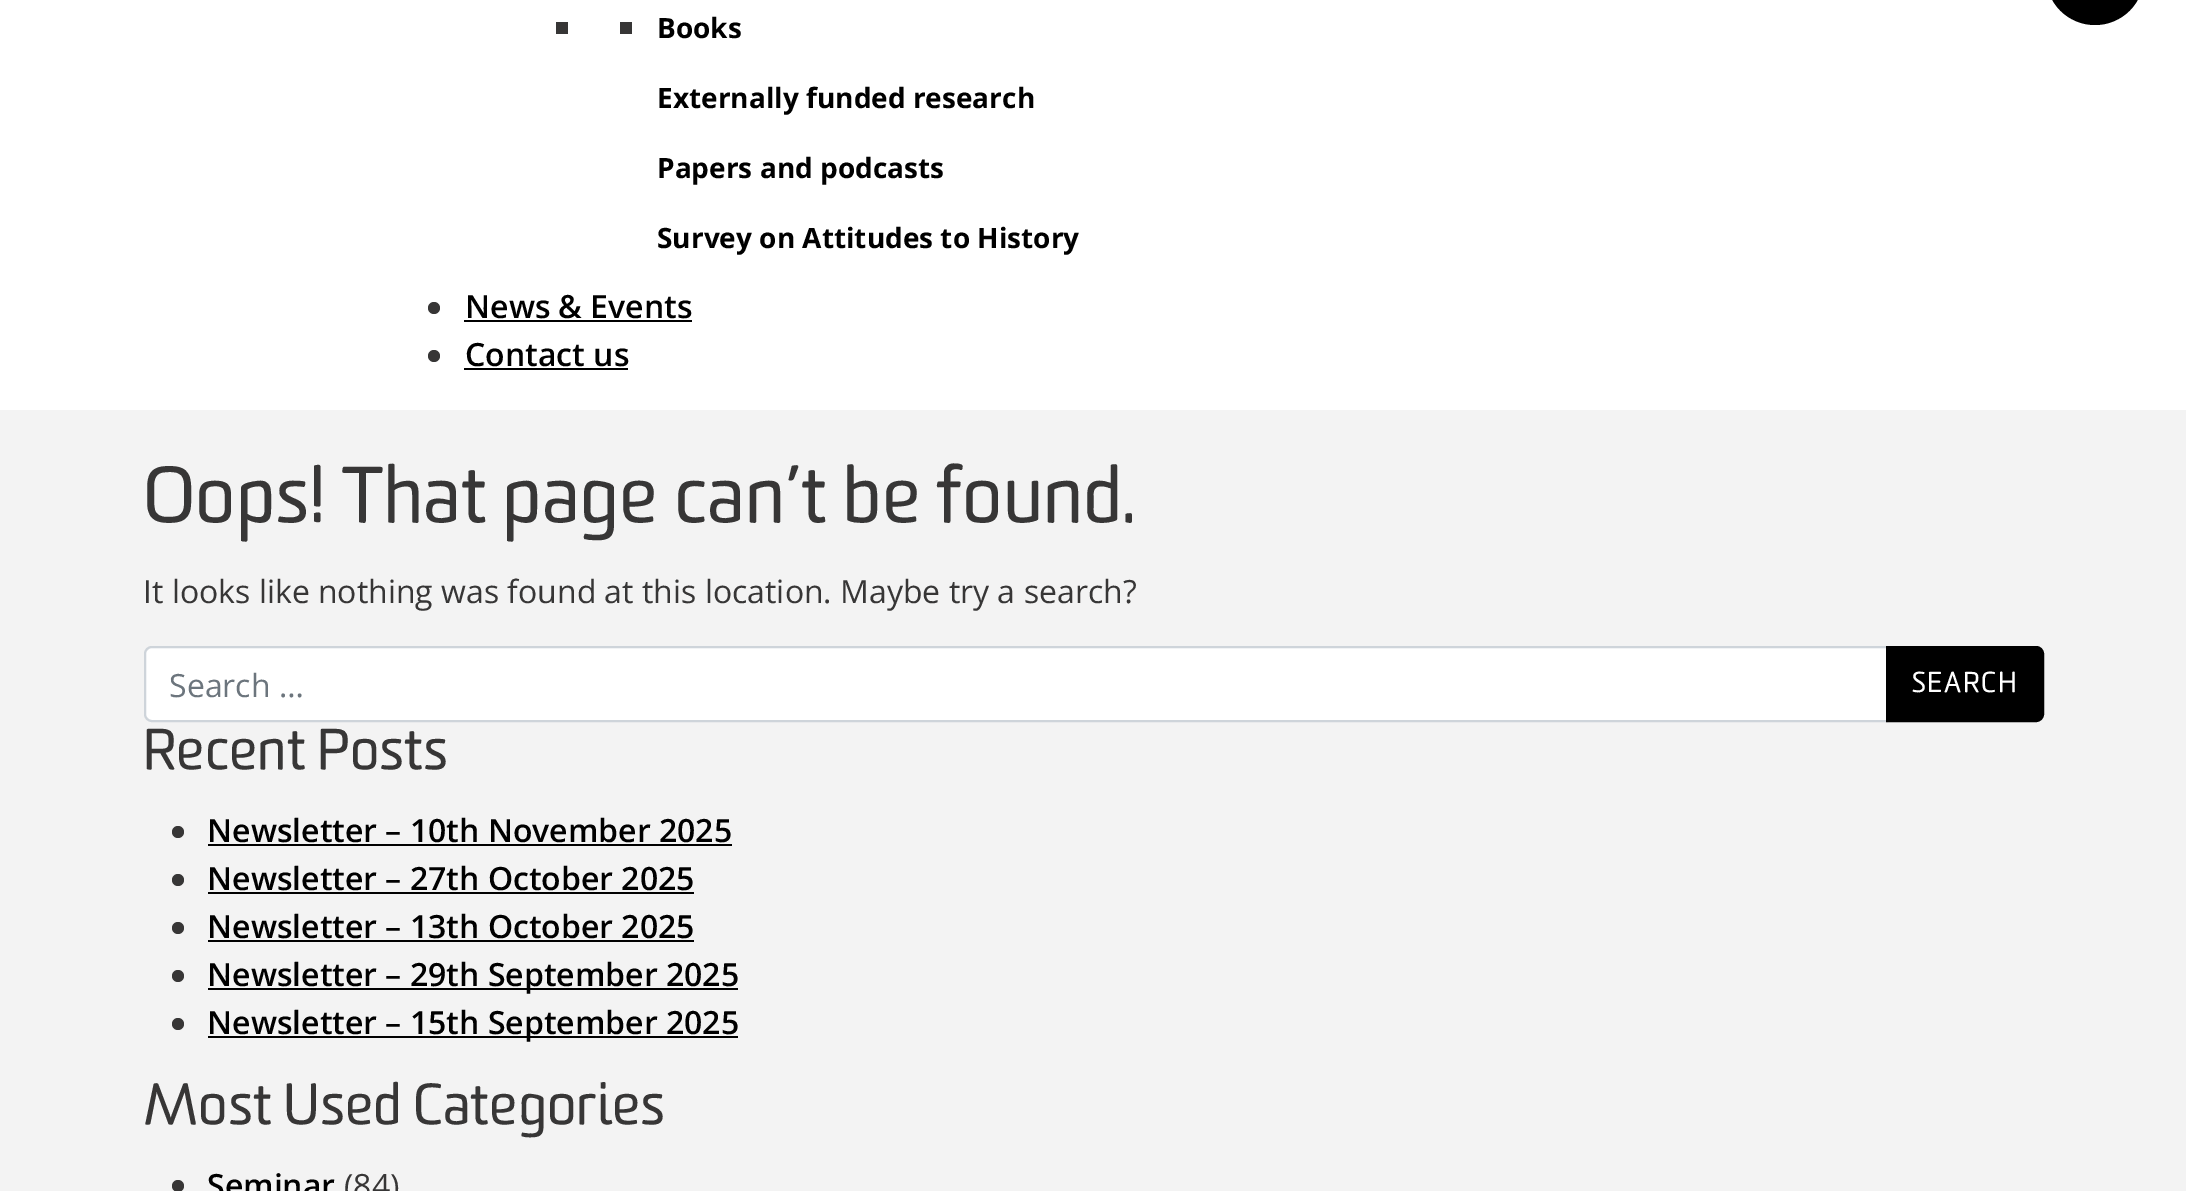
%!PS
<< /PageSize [2186 1191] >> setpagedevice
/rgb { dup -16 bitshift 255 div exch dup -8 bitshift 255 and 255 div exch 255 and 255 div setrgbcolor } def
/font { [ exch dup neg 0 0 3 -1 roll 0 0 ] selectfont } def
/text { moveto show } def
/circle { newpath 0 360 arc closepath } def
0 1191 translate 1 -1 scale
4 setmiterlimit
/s1 { /OpenSans-Bold 28 font 16#000000 rgb } def
/s2 { /OpenSans-SemiBold 32 font 16#000000 rgb } def
/s3 { /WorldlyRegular-Regular 76.75 font 16#373636 rgb } def
/s4 { /OpenSans-Regular 32 font 16#373636 rgb } def
/s5 { /OpenSans-Regular 32 font 16#6C757D rgb } def
/s6 { /WorldlyRegular-Regular 56 font 16#373636 rgb } def
16#F3F3F3 rgb
0 0 2186 1191 rectfill
16#FFFFFF rgb
0 0 2186 410 rectfill
16#000000 rgb
2095 -24 49 circle fill
16#373636 rgb
556 22 12 12 rectfill
620 22 12 12 rectfill
s1
(Books) 657 38 text
(Externally funded research) 657 108 text
(Papers and podcasts) 657 178 text
(Survey on Attitudes to History) 657 248 text
16#373636 rgb
434 308 6 circle fill
s2
(News & Events) 465 318 text
464 320 228 2 rectfill
16#373636 rgb
434 356 6 circle fill
s2
(Contact us) 465 366 text
464 368 164 2 rectfill
s3
(Oops! That page can’t be found.) 143 522 text
s4
(It looks like nothing was found at this location. Maybe try a search?) 143 603 text
16#FFFFFF rgb
152 647 moveto 1887 647 lineto 1887 721 lineto 152 721 lineto 148 721 145 718 145 714 curveto 145 654 lineto 145 650 148 647 152 647 curveto closepath gsave fill grestore
16#CED4DA rgb
2 setlinewidth
stroke
s5
(Search …) 169 697 text
16#000000 rgb
1887 647 moveto 2036 647 lineto 2040 647 2043 650 2043 654 curveto 2043 714 lineto 2043 718 2040 721 2036 721 curveto 1887 721 lineto closepath gsave fill grestore
stroke
/WorldlyRegular-Regular 28 font
16#FFFFFF rgb
1912 692 moveto 1.5 0 (SEARCH) ashow
s6
(Recent Posts) 143 769 text
178 832 6 circle fill
s2
(Newsletter – 10th November 2025) 207 842 text
208 844 524 2 rectfill
16#373636 rgb
178 880 6 circle fill
s2
(Newsletter – 27th October 2025) 207 890 text
208 892 486 2 rectfill
16#373636 rgb
178 928 6 circle fill
s2
(Newsletter – 13th October 2025) 207 938 text
208 940 486 2 rectfill
16#373636 rgb
178 976 6 circle fill
16#000000 rgb
208 988 530 2 rectfill
(Newsletter – 29th September 2025) 207 986 text
16#373636 rgb
178 1024 6 circle fill
16#000000 rgb
208 1036 530 2 rectfill
(Newsletter – 15th September 2025) 207 1034 text
s6
(Most Used Categories) 143 1124 text
178 1186 6 circle fill
s2
(Seminar) 207 1197 text
s4
(\(84\)) 344 1197 text
showpage
